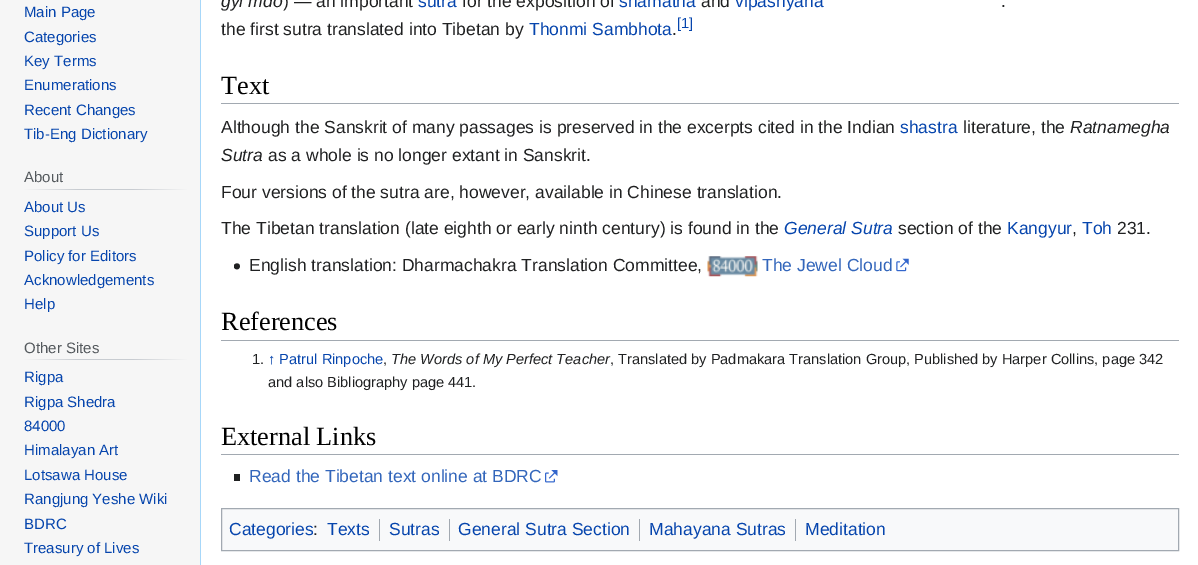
%!PS
<< /PageSize [1198 565] >> setpagedevice
/rgb { dup -16 bitshift 255 div exch dup -8 bitshift 255 and 255 div exch 255 and 255 div setrgbcolor } def
/font { [ exch dup neg 0 0 3 -1 roll 0 0 ] selectfont } def
/text { moveto show } def
/picture { 5 dict begin { /h /w /y /x /name } { exch def } forall
  gsave x y translate w h scale
  w h 8 [w 0 0 h 0 0] name (r) file false 3 colorimage grestore end } def
0 565 translate 1 -1 scale
4 setmiterlimit
/s1 { /LiberationSans-Regular 15 font 16#0645AD rgb } def
/s2 { /LiberationSans-Regular 15 font 16#54595D rgb } def
/s3 { /LiberationSans-Italic 17.5 font 16#202122 rgb } def
/s4 { /LiberationSans-Regular 17.5 font 16#202122 rgb } def
/s5 { /LiberationSans-Regular 17.5 font 16#0645AD rgb } def
/s6 { /LiberationSans-Regular 14.6 font 16#0645AD rgb } def
/s7 { /LiberationSerif-Regular 26.25 font 16#000000 rgb } def
/s8 { /LiberationSans-Italic 17.5 font 16#0645AD rgb } def
/s9 { /LiberationSans-Regular 17.5 font 16#3366BB rgb } def
/s10 { /LiberationSans-Regular 14.6 font 16#202122 rgb } def
/s11 { /LiberationSans-Italic 14.6 font 16#202122 rgb } def
16#F6F6F6 rgb
0 0 1198 565 rectfill
s1
(Main Page) 24 17 text
(Categories) 24 42 text
(Key Terms) 24 66 text
(Enumerations) 24 90 text
(Recent Changes) 24 115 text
(Tib-Eng Dictionary) 24 139 text
gsave 24 189 moveto 188 189 lineto 188 190 lineto 24 190 lineto closepath clip newpath
<< /ShadingType 2 /ColorSpace /DeviceRGB /Coords [24 189 188 189] /Extend [true true] /Function << /FunctionType 3 /Domain [0 1] /Functions [<< /FunctionType 2 /Domain [0 1] /C0 [0.965 0.965 0.965] /C1 [0.784 0.8 0.82] /N 1 >> << /FunctionType 2 /Domain [0 1] /C0 [0.784 0.8 0.82] /C1 [0.784 0.8 0.82] /N 1 >> << /FunctionType 2 /Domain [0 1] /C0 [0.784 0.8 0.82] /C1 [0.965 0.965 0.965] /N 1 >>] /Bounds [0.33 0.66] /Encode [0 1 0 1 0 1] >> >> shfill grestore
s2
(About) 24 182 text
s1
(About Us) 24 212 text
(Support Us) 24 236 text
(Policy for Editors) 24 261 text
(Acknowledgements) 24 285 text
(Help) 24 309 text
gsave 24 359 moveto 188 359 lineto 188 360 lineto 24 360 lineto closepath clip newpath
<< /ShadingType 2 /ColorSpace /DeviceRGB /Coords [24 359 188 359] /Extend [true true] /Function << /FunctionType 3 /Domain [0 1] /Functions [<< /FunctionType 2 /Domain [0 1] /C0 [0.965 0.965 0.965] /C1 [0.784 0.8 0.82] /N 1 >> << /FunctionType 2 /Domain [0 1] /C0 [0.784 0.8 0.82] /C1 [0.784 0.8 0.82] /N 1 >> << /FunctionType 2 /Domain [0 1] /C0 [0.784 0.8 0.82] /C1 [0.965 0.965 0.965] /N 1 >>] /Bounds [0.33 0.66] /Encode [0 1 0 1 0 1] >> >> shfill grestore
s2
(Other Sites) 24 353 text
s1
(Rigpa) 24 382 text
(Rigpa Shedra) 24 407 text
(84000) 24 431 text
(Himalayan Art) 24 455 text
(Lotsawa House) 24 480 text
(Rangjung Yeshe Wiki) 24 504 text
(BDRC) 24 529 text
(Treasury of Lives) 24 553 text
16#FFFFFF rgb
201 0 997 565 rectfill
16#A7D7F9 rgb
200 0 1 565 rectfill
s3
(gyi mdo) 221 7 text
s4
(\) — an important) 283 7 text
s5
(sutra) 418 7 text
s4
(for the exposition of) 462 7 text
s5
(shamatha) 619 7 text
s4
(and) 701 7 text
s5
(vipashyana) 735 7 text
s4
(.) 1001 7 text
(the first sutra translated into Tibetan by) 221 35 text
s5
(Thonmi Sambhota) 529 35 text
s4
(.) 672 35 text
s6
([1]) 677 28 text
16#A2A9B1 rgb
221 103 958 1 rectfill
s7
(Text) 221 94 text
s4
(Although the Sanskrit of many passages is preserved in the excerpts cited in the Indian) 221 133 text
s5
(shastra) 900 133 text
s4
(literature, the) 963 133 text
s3
(Ratnamegha) 1070 133 text
(Sutra) 221 161 text
s4
(as a whole is no longer extant in Sanskrit.) 268 161 text
(Four versions of the sutra are, however, available in Chinese translation.) 221 198 text
(The Tibetan translation \(late eighth or early ninth century\) is found in the) 221 234 text
s8
(General Sutra) 784 234 text
s4
(section of the) 898 234 text
s5
(Kangyur) 1007 234 text
s4
(,) 1072 234 text
s5
(Toh) 1082 234 text
s4
(231.) 1117 234 text
(pic1.raw) 234 263 6 7 picture
(English translation: Dharmachakra Translation Committee,) 249 271 text
(pic2.raw) 707 256 51 21 picture
s9
(The Jewel Cloud) 762 271 text
(pic3.raw) 896 258 13 14 picture
16#A2A9B1 rgb
221 340 958 1 rectfill
s7
(References) 221 330 text
s10
(1.) 252 364 text
s6
(↑ Patrul Rinpoche) 268 364 text
s10
(,) 383 364 text
s11
(The Words of My Perfect Teacher) 391 364 text
s10
(, Translated by Padmakara Translation Group, Published by Harper Collins, page 342) 610 364 text
(and also Bibliography page 441.) 268 387 text
16#A2A9B1 rgb
221 454 958 1 rectfill
s7
(External Links) 221 445 text
16#202122 rgb
234 474 6 7 rectfill
s9
(Read the Tibetan text online at BDRC) 249 482 text
(pic4.raw) 545 470 13 13 picture
16#F8F9FA rgb
221.5 508.5 moveto 1178.5 508.5 lineto 1178.5 550.5 lineto 221.5 550.5 lineto closepath gsave fill grestore
16#A2A9B1 rgb
stroke
s5
(Categories) 229 535 text
s4
(:) 313 535 text
s5
(Texts) 327 535 text
16#A2A9B1 rgb
379 519 1 22 rectfill
s5
(Sutras) 389 535 text
16#A2A9B1 rgb
449 519 1 22 rectfill
s5
(General Sutra Section) 458 535 text
16#A2A9B1 rgb
639 519 1 22 rectfill
s5
(Mahayana Sutras) 649 535 text
16#A2A9B1 rgb
795 519 1 22 rectfill
s5
(Meditation) 805 535 text
showpage
